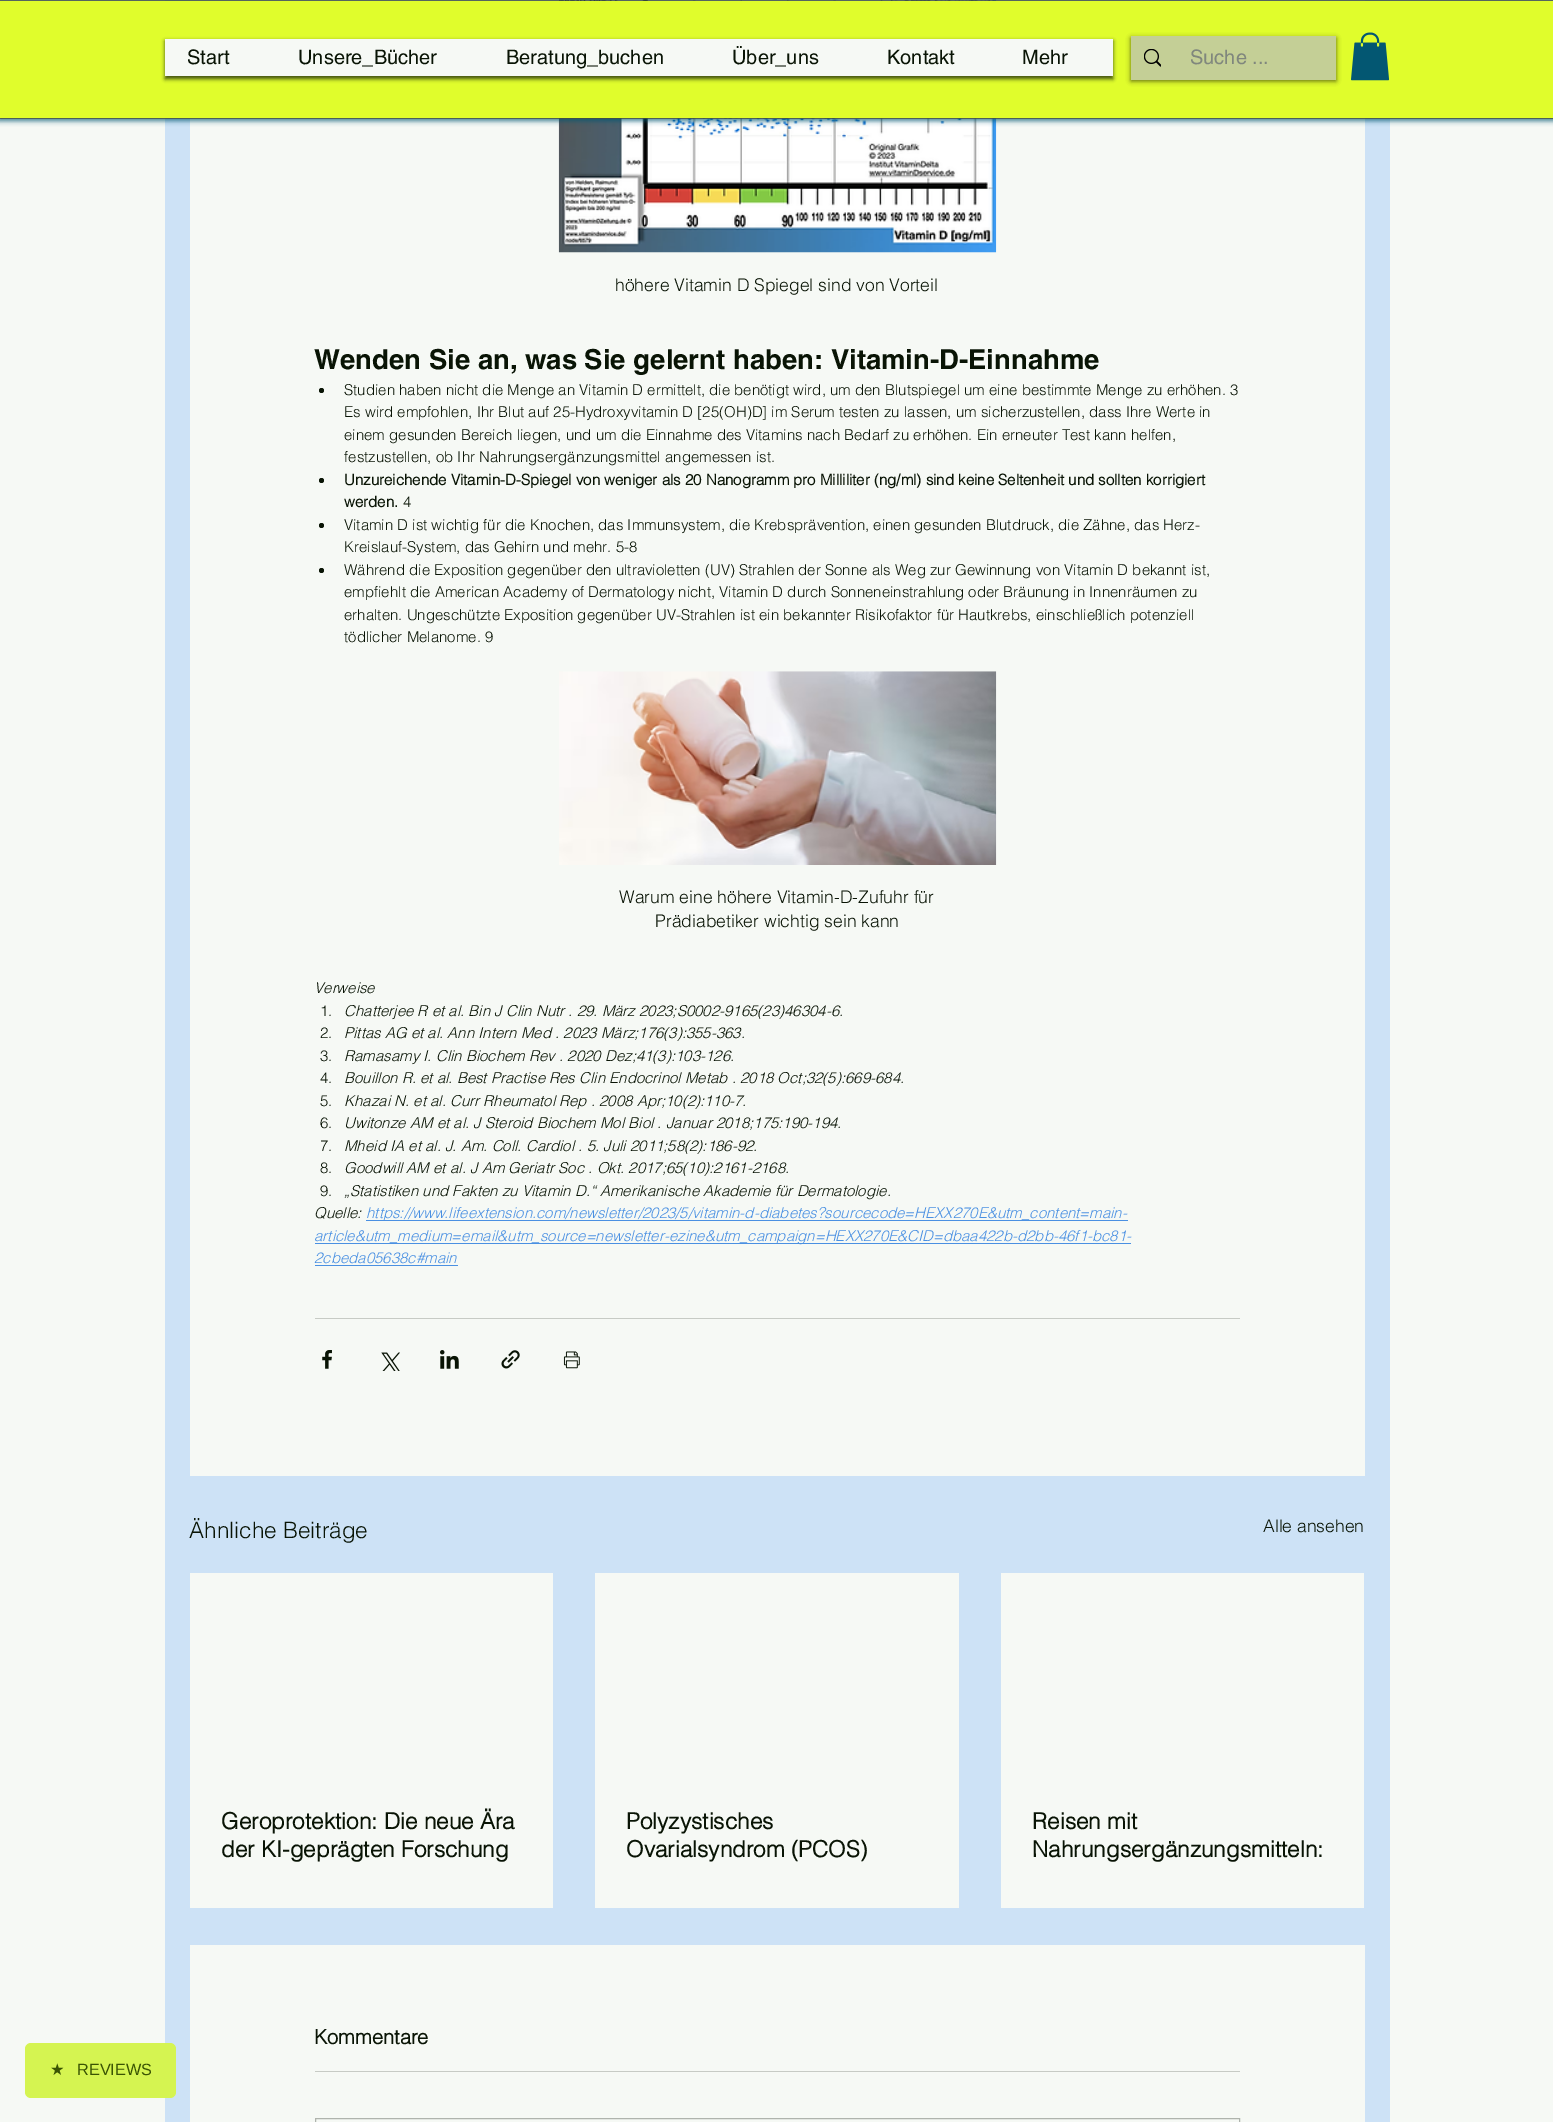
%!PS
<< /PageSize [1553 2122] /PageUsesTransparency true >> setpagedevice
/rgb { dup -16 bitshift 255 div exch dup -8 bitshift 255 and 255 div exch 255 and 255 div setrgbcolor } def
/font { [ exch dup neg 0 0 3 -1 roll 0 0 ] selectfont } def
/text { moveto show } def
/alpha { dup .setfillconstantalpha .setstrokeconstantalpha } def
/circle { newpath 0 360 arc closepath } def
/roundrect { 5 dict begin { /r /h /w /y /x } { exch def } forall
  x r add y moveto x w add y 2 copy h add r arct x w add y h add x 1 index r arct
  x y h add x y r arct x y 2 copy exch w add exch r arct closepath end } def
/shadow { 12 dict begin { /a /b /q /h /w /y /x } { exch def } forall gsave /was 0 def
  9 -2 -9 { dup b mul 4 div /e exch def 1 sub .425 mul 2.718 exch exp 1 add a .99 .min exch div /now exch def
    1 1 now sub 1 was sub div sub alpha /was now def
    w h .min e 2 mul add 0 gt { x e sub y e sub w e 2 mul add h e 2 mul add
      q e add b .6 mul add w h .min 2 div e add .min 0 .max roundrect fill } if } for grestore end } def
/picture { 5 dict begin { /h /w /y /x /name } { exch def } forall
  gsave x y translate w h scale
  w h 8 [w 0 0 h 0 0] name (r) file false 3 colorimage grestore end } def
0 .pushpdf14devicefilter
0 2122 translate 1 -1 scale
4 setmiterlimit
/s1 { /helvetica-Regular 20 font 16#091405 rgb } def
/s2 { /helvetica-Regular 20 font 16#80877D rgb } def
/s3 { /helvetica-Light 17.5 font 16#091405 rgb } def
/s4 { /helvetica-Bold 27.5 font 16#091405 rgb } def
/s5 { /helvetica-Light 15 font 16#091405 rgb } def
/s6 { /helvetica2-Bold 15 font 16#091405 rgb } def
/s7 { /helvetica-LightItalic 15 font 16#091405 rgb } def
/s8 { /helvetica-LightItalic 15 font 16#4A90E2 rgb } def
/s9 { /helvetica-Light 22.5 font 16#091405 rgb } def
/s10 { /helvetica2-Bold 22.5 font 16#091405 rgb } def
/s11 { /helvetica2-Bold 20 font 16#091405 rgb } def
/s12 { /DejaVuSans-Regular 16.25 font 16#3A5403 rgb } def
/s13 { /LiberationSans-Regular 16.25 font 16#3A5403 rgb } def
16#F6F9F5 rgb
0 0 1553 2122 rectfill
16#CDE2F6 rgb
165 0 1225 2122 rectfill
16#F6F9F5 rgb
190 0 1175 1476 rectfill
(pic3.raw) 558 0 439 253 picture
16#035772 rgb
-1 0 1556 121 0 2.5 0.75 shadow
0.75 alpha
16#444D41 rgb
0 0 1553 1 rectfill
0 118 1553 1 rectfill
1 alpha
16#E0FD2C rgb
0 1 1553 117 rectfill
16#091405 rgb
165 41 948 38 0 2 0.75 shadow
16#F6F9F5 rgb
165 39 948 37 rectfill
s1
(Start) 187 64 text
(Unsere_Bücher) 298 64 text
(Beratung_buchen) 506 64 text
(Über_uns) 732 64 text
(Kontakt) 887 64 text
(Mehr) 1022 64 text
gsave
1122 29 moveto 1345 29 lineto 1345 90 lineto 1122 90 lineto closepath 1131 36 moveto 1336 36 lineto 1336 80 lineto 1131 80 lineto closepath eoclip newpath
16#000000 rgb
1131 38 205 43 0 2.5 0.6 shadow
grestore
0.75 alpha
16#BBC0B9 rgb
1131 36 205 44 rectfill
1 alpha
(pic1.raw) 1144 49 17 18 picture
s2
(Suche ...) 1190 64 text
(pic2.raw) 1351 32 39 49 picture
s3
(höhere Vitamin D Spiegel sind von Vorteil) 615 291 text
s4
(Wenden Sie an, was Sie gelernt haben: Vitamin-D-Einnahme) 314 369 text
321.5 390.5 2.5 circle fill
s5
(Studien haben nicht die Menge an Vitamin D ermittelt, die benötigt wird, um den Blutspiegel um eine bestimmte Menge zu erhöhen. 3) 344 395 text
(Es wird empfohlen, Ihr Blut auf 25-Hydroxyvitamin D [25\(OH\)D] im Serum testen zu lassen, um sicherzustellen, dass Ihre Werte in) 344 417 text
(einem gesunden Bereich liegen, und um die Einnahme des Vitamins nach Bedarf zu erhöhen. Ein erneuter Test kann helfen,) 344 440 text
(festzustellen, ob Ihr Nahrungsergänzungsmittel angemessen ist.) 344 462 text
321.5 480.5 2.5 circle fill
s6
(Unzureichende Vitamin-D-Spiegel von weniger als 20 Nanogramm pro Milliliter \(ng/ml\) sind keine Seltenheit und sollten korrigiert) 344 485 text
(werden.) 344 507 text
s5
(4) 403 507 text
321.5 525.5 2.5 circle fill
(Vitamin D ist wichtig für die Knochen, das Immunsystem, die Krebsprävention, einen gesunden Blutdruck, die Zähne, das Herz-) 344 530 text
(Kreislauf-System, das Gehirn und mehr. 5-8) 344 552 text
321.5 570.5 2.5 circle fill
(Während die Exposition gegenüber den ultravioletten \(UV\) Strahlen der Sonne als Weg zur Gewinnung von Vitamin D bekannt ist,) 344 575 text
(empfiehlt die American Academy of Dermatology nicht, Vitamin D durch Sonneneinstrahlung oder Bräunung in Innenräumen zu) 344 597 text
(erhalten. Ungeschützte Exposition gegenüber UV-Strahlen ist ein bekannter Risikofaktor für Hautkrebs, einschließlich potenziell) 344 620 text
(tödlicher Melanome. 9) 344 642 text
(pic4.raw) 559 671 438 194 picture
s3
(Warum eine höhere Vitamin-D-Zufuhr für) 619 903 text
(Prädiabetiker wichtig sein kann) 655 927 text
s7
(Verweise) 314 993 text
s5
(1.) 320 1016 text
s7
(Chatterjee R et al. Bin J Clin Nutr . 29. März 2023;S0002-9165\(23\)46304-6.) 344 1016 text
s5
(2.) 320 1038 text
s7
(Pittas AG et al. Ann Intern Med . 2023 März;176\(3\):355-363.) 344 1038 text
s5
(3.) 320 1061 text
s7
(Ramasamy I. Clin Biochem Rev . 2020 Dez;41\(3\):103-126.) 344 1061 text
s5
(4.) 320 1083 text
s7
(Bouillon R. et al. Best Practise Res Clin Endocrinol Metab . 2018 Oct;32\(5\):669-684.) 344 1083 text
s5
(5.) 320 1106 text
s7
(Khazai N. et al. Curr Rheumatol Rep . 2008 Apr;10\(2\):110-7.) 344 1106 text
s5
(6.) 320 1128 text
s7
(Uwitonze AM et al. J Steroid Biochem Mol Biol . Januar 2018;175:190-194.) 344 1128 text
s5
(7.) 320 1151 text
s7
(Mheid IA et al. J. Am. Coll. Cardiol . 5. Juli 2011;58\(2\):186-92.) 344 1151 text
s5
(8.) 320 1173 text
s7
(Goodwill AM et al. J Am Geriatr Soc . Okt. 2017;65\(10\):2161-2168.) 344 1173 text
s5
(9.) 320 1196 text
s7
(„Statistiken und Fakten zu Vitamin D.“ Amerikanische Akademie für Dermatologie.) 344 1196 text
(Quelle:) 314 1218 text
16#4A90E2 rgb
366 1220 762 1 rectfill
(https://www.lifeextension.com/newsletter/2023/5/vitamin-d-diabetes?sourcecode=HEXX270E&utm_content=main-) 366 1218 text
315 1243 816 1 rectfill
(article&utm_medium=email&utm_source=newsletter-ezine&utm_campaign=HEXX270E&CID=dbaa422b-d2bb-46f1-bc81-) 314 1241 text
(2cbeda05638c#main) 314 1263 text
315 1265 143 1 rectfill
16#C7CBC5 rgb
315 1318 925 1 rectfill
(pic5.raw) 322 1350 10 19 picture
(pic6.raw) 381 1352 19 19 picture
(pic7.raw) 440 1350 19 19 picture
(pic8.raw) 501 1350 19 19 picture
(pic9.raw) 563 1351 17 18 picture
s9
(Ähnliche Beiträge) 189 1538 text
s3
(Alle ansehen) 1263 1532 text
16#F6F9F5 rgb
190 1573 363 335 rectfill
s10
(Geroprotektion: Die neue Ära) 221 1829 text
(der KI-geprägten Forschung) 221 1857 text
16#F6F9F5 rgb
595 1573 364 335 rectfill
s10
(Polyzystisches) 626 1829 text
(Ovarialsyndrom \(PCOS\)) 626 1857 text
16#F6F9F5 rgb
1001 1573 363 335 rectfill
s10
(Reisen mit) 1032 1829 text
(Nahrungsergänzungsmitteln:) 1032 1857 text
16#F6F9F5 rgb
190 1945 1175 177 rectfill
s11
(Kommentare) 314 2044 text
16#C7CBC5 rgb
315 2071 925 1 rectfill
16#AFB4AD rgb
315.5 2118.5 924 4 rectstroke
16#D5F451 rgb
25 2043 151 55 6 roundrect fill
s12
(★) 50 2075 text
s13
(REVIEWS) 77 2075 text
.poppdf14devicefilter showpage
